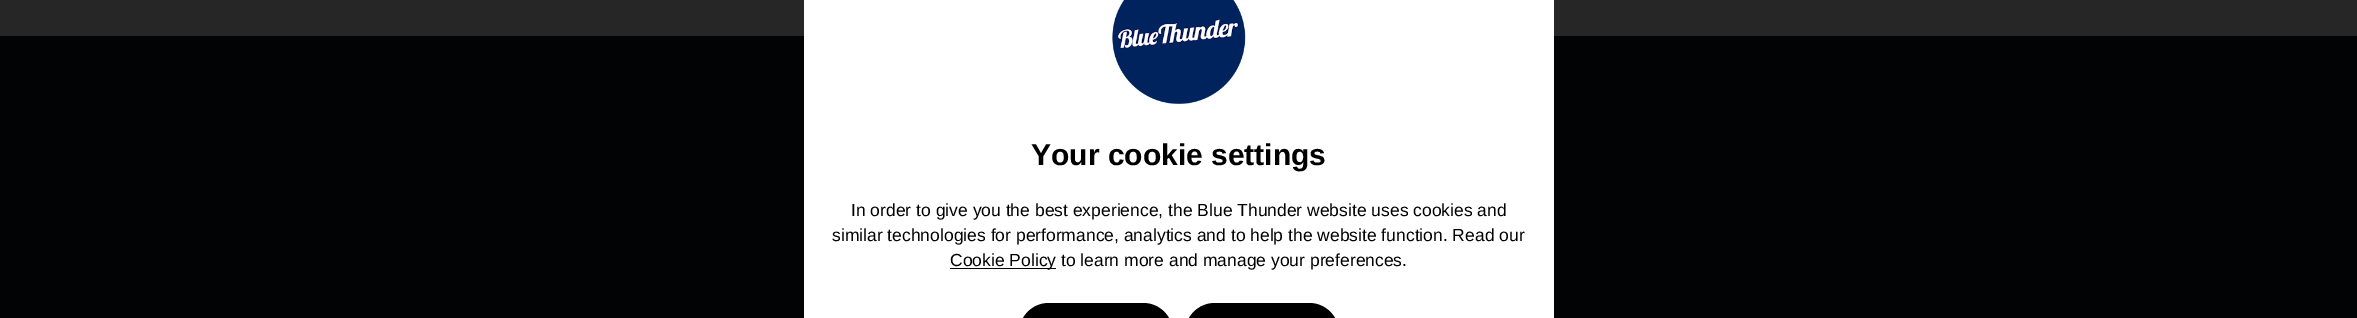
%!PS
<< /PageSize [2357 318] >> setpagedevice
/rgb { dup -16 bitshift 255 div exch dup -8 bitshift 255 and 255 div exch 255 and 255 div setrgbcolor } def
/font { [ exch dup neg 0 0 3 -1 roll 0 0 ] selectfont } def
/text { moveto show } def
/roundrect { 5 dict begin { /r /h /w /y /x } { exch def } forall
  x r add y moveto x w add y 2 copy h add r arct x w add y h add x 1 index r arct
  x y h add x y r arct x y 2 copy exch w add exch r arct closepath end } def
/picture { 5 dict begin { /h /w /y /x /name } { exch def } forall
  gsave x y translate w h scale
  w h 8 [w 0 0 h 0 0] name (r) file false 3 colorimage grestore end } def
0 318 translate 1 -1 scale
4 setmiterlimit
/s1 { /LiberationSans-Bold 30 font 16#000000 rgb } def
/s2 { /LiberationSans-Regular 17.5 font 16#000000 rgb } def
16#262626 rgb
0 0 2357 318 rectfill
16#010305 rgb
0 36 2357 282 rectfill
16#FFFFFF rgb
804 0 750 318 rectfill
(pic1.raw) 1112 0 134 104 picture
s1
(Your cookie settings) 1031 165 text
s2
(In order to give you the best experience, the Blue Thunder website uses cookies and) 851 216 text
(similar technologies for performance, analytics and to help the website function. Read our) 832 241 text
950 268 106 1 rectfill
(Cookie Policy to learn more and manage your preferences.) 950 266 text
1019 303 154 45 30 roundrect fill
1185 303 154 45 30 roundrect fill
showpage
